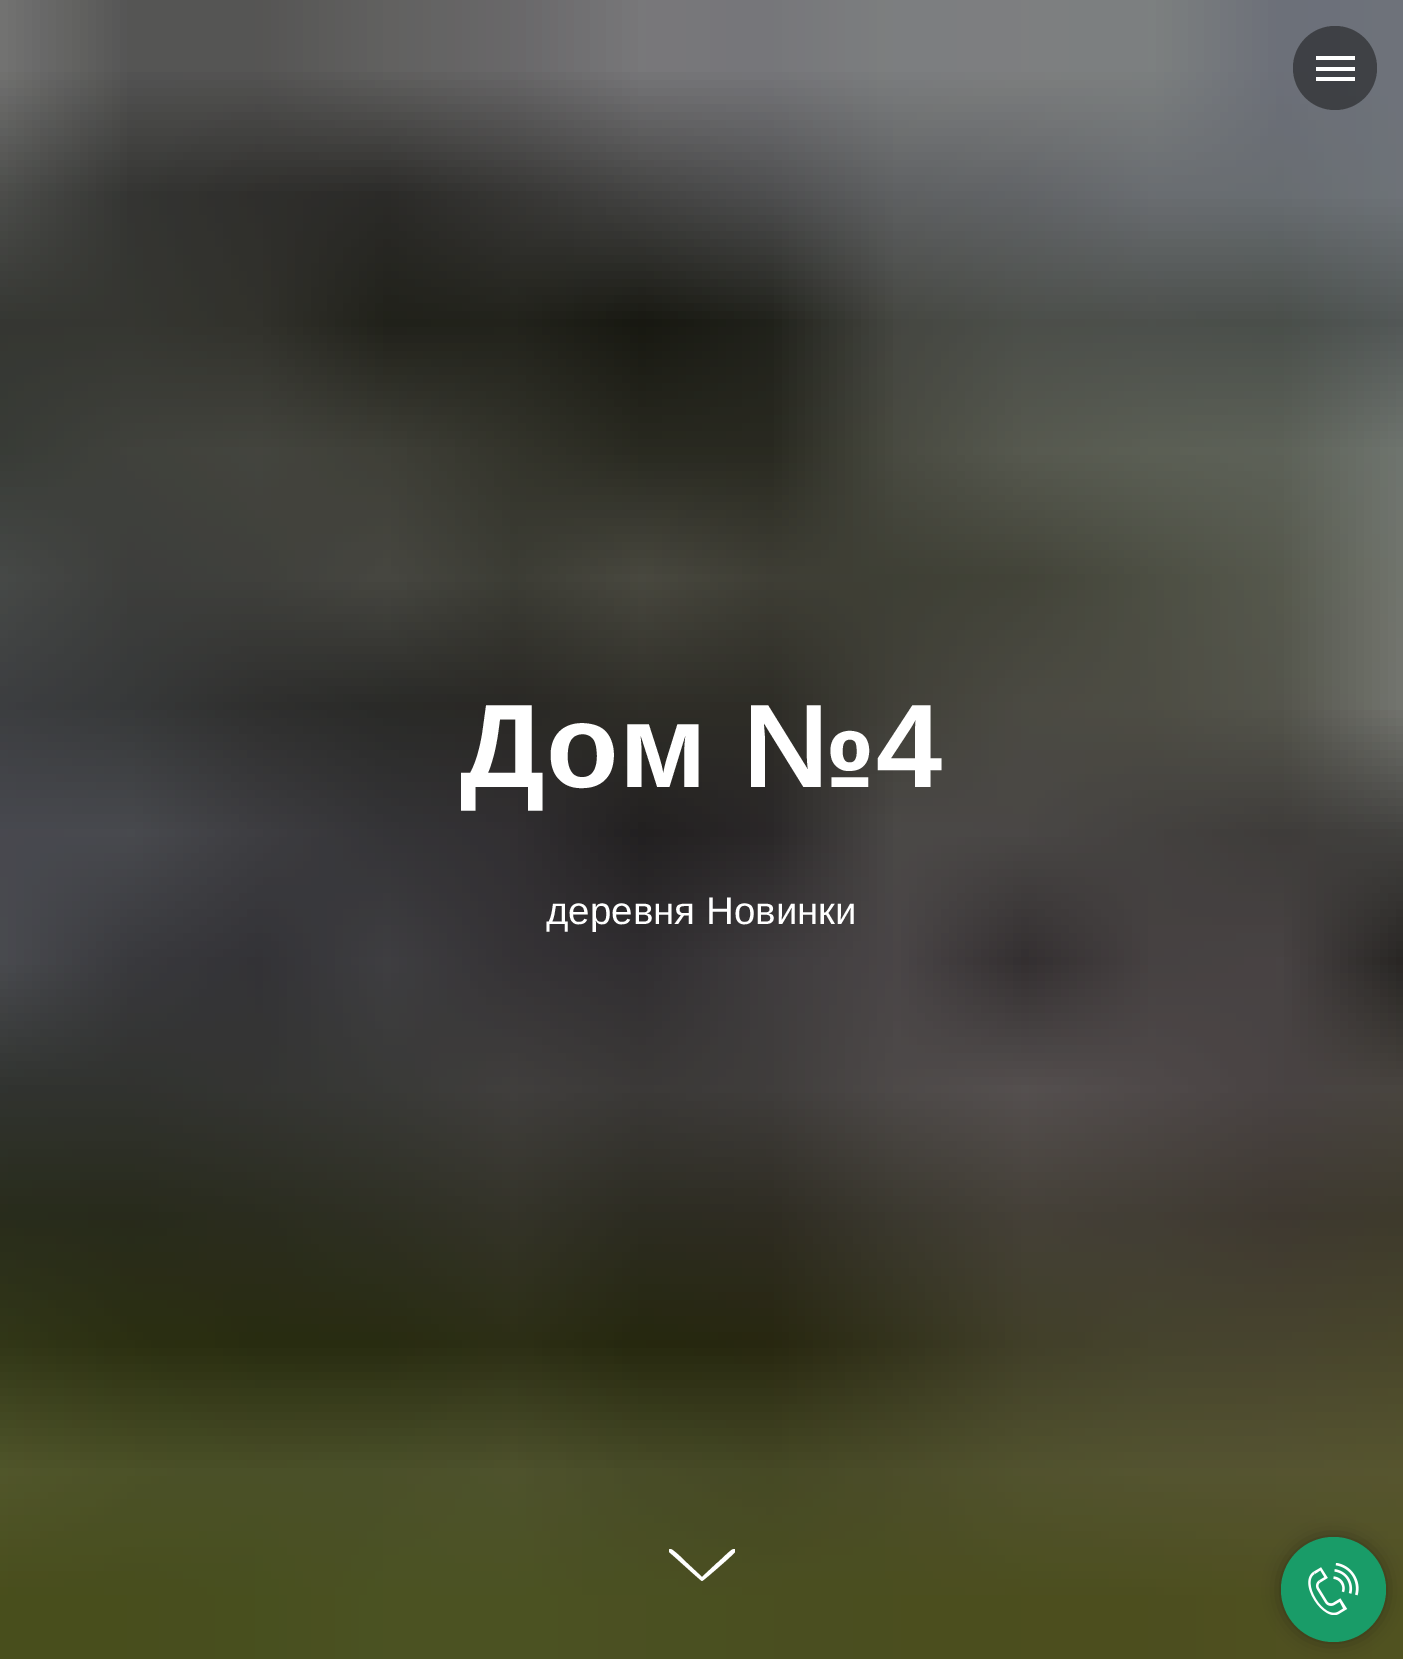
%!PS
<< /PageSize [1403 1659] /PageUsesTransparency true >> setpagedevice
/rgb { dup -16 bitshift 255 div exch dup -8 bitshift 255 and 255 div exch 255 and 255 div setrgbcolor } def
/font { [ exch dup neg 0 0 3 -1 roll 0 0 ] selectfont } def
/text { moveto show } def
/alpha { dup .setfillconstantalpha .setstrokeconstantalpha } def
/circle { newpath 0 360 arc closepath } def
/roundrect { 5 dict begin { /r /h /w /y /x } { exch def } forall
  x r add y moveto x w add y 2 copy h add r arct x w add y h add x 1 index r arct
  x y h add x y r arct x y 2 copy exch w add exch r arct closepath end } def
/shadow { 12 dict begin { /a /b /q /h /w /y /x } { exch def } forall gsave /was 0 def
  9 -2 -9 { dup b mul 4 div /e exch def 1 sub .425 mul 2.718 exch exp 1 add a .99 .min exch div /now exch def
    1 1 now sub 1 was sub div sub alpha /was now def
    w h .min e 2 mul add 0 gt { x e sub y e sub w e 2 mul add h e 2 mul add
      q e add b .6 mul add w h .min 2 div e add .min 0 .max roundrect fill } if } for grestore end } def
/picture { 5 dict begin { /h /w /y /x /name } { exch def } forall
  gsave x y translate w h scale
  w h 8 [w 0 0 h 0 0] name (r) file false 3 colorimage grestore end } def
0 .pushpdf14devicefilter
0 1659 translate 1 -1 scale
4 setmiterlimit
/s1 { /LiberationSans-Regular 38.5 font 16#FFFFFF rgb } def
16#FFFFFF rgb
0 0 1403 1659 rectfill
(pic1.raw) 0 0 1403 1659 picture
/LiberationSans-Bold 119 font
460 787 moveto 1 0 (Дом №4) ashow
s1
(деревня Новинки) 546 924 text
gsave
669 1549 66 33 rectclip
702 1581 moveto 701 1581 673 1555 669 1552 curveto 668 1551 669 1549 670 1549 curveto 672 1548 685 1561 687 1563 curveto 702 1577 lineto 717 1563 lineto 720 1561 732 1548 734 1549 curveto 736 1549 736 1551 735 1552 curveto 734 1554 703 1581 702 1581 curveto closepath fill
grestore
0.5 alpha
16#111111 rgb
1335 68 42 circle fill
1 alpha
16#FFFFFF rgb
1316 56 39 4 rectfill
1316 67 39 4 rectfill
1316 77 39 4 rectfill
16#000000 rgb
1281 1537 105 105 52.5 9 0.3 shadow
16#199C68 rgb
1333.5 1589.5 52.5 circle fill
(pic2.raw) 1308 1563 51 52 picture
.poppdf14devicefilter showpage
